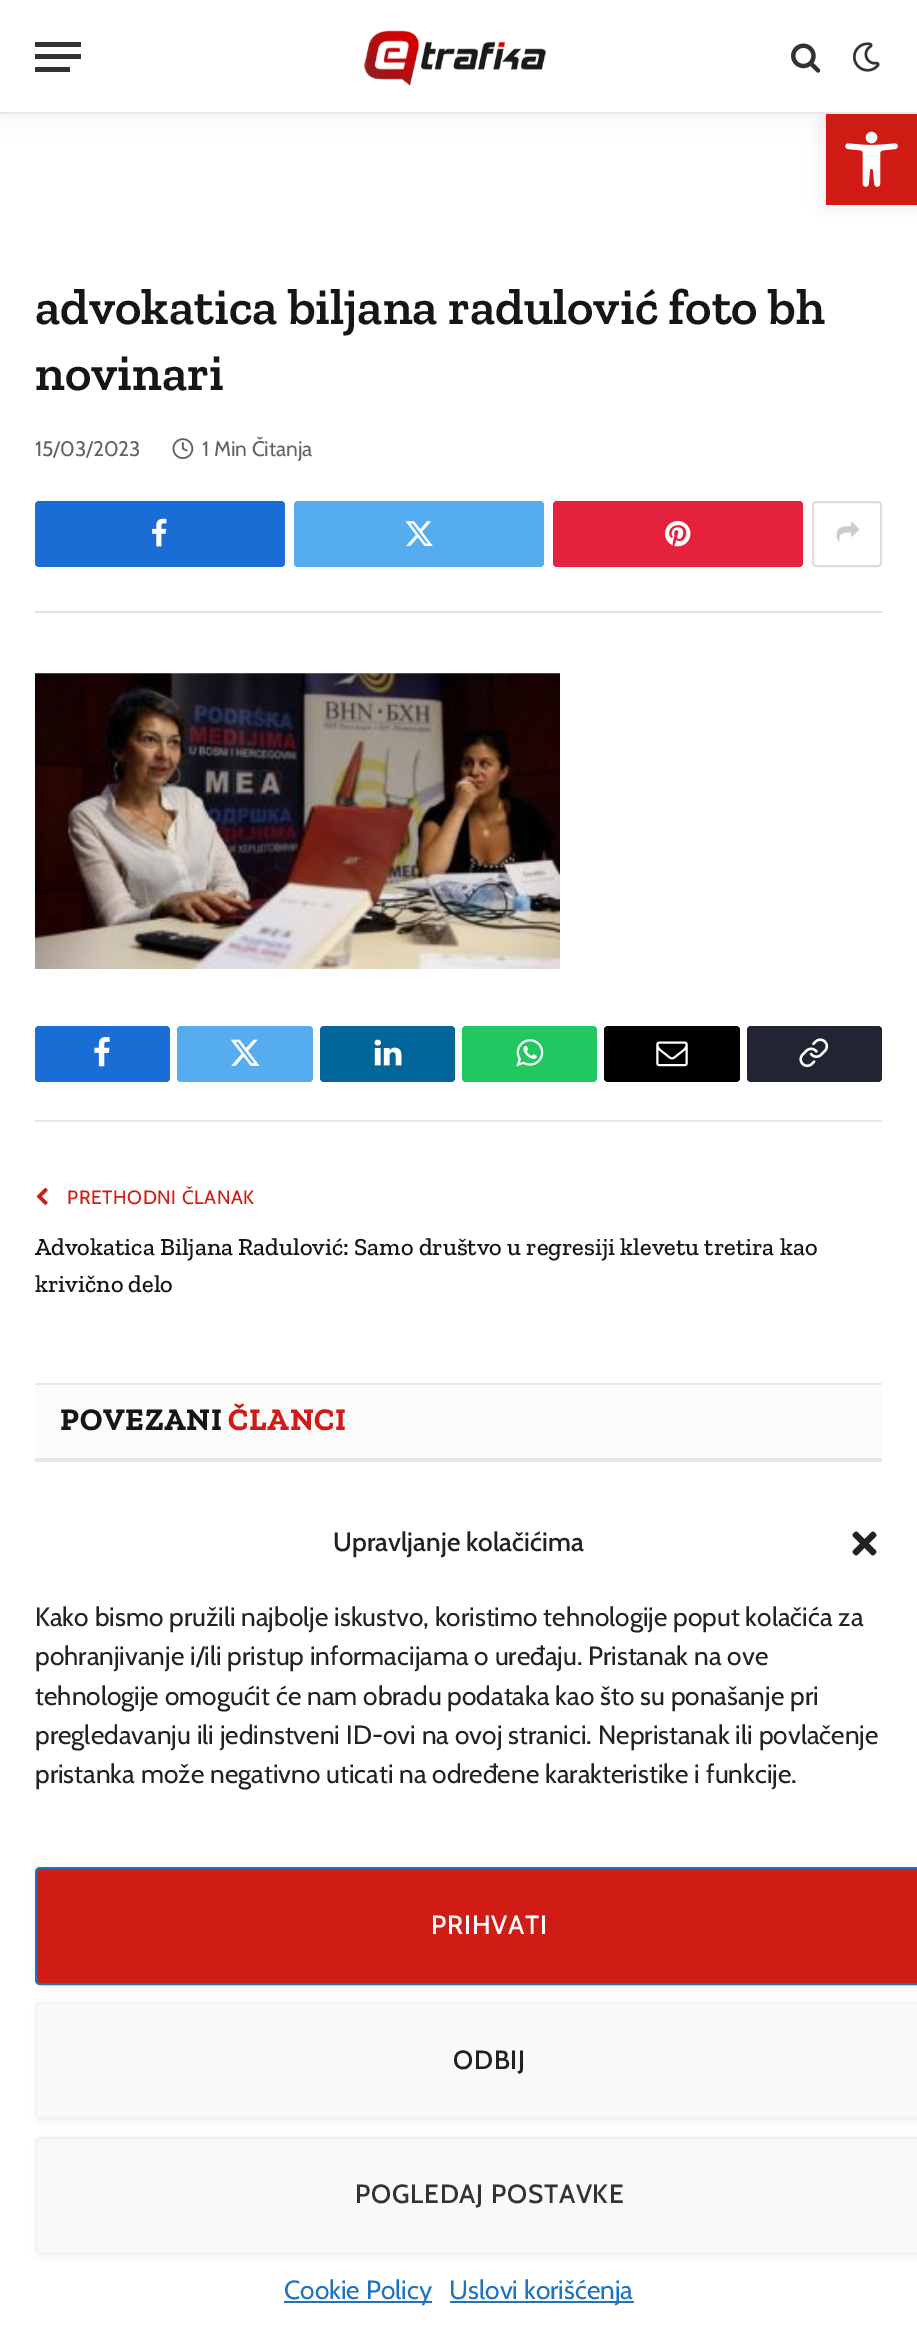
%!PS
<< /PageSize [917 2335] /PageUsesTransparency true >> setpagedevice
/rgb { dup -16 bitshift 255 div exch dup -8 bitshift 255 and 255 div exch 255 and 255 div setrgbcolor } def
/font { [ exch dup neg 0 0 3 -1 roll 0 0 ] selectfont } def
/text { moveto show } def
/alpha { dup .setfillconstantalpha .setstrokeconstantalpha } def
/roundrect { 5 dict begin { /r /h /w /y /x } { exch def } forall
  x r add y moveto x w add y 2 copy h add r arct x w add y h add x 1 index r arct
  x y h add x y r arct x y 2 copy exch w add exch r arct closepath end } def
/shadow { 12 dict begin { /a /b /q /h /w /y /x } { exch def } forall gsave /was 0 def
  9 -2 -9 { dup b mul 4 div /e exch def 1 sub .425 mul 2.718 exch exp 1 add a .99 .min exch div /now exch def
    1 1 now sub 1 was sub div sub alpha /was now def
    w h .min e 2 mul add 0 gt { x e sub y e sub w e 2 mul add h e 2 mul add
      q e add b .6 mul add w h .min 2 div e add .min 0 .max roundrect fill } if } for grestore end } def
/picture { 5 dict begin { /h /w /y /x /name } { exch def } forall
  gsave x y translate w h scale
  w h 8 [w 0 0 h 0 0] name (r) file false 3 colorimage grestore end } def
0 .pushpdf14devicefilter
0 2335 translate 1 -1 scale
4 setmiterlimit
/s1 { /ZillaSlab-SemiBold 50.75 font 16#161616 rgb } def
/s2 { /Cabin-Regular 21 font 16#636363 rgb } def
/s3 { /ZillaSlab-Medium 24.5 font 16#161616 rgb } def
/s4 { /Cabin-Medium 26.25 font 16#222222 rgb } def
/s5 { /Cabin-Regular 26.25 font 16#222222 rgb } def
/s6 { /Cabin-Regular 26.25 font 16#1E73BE rgb } def
16#FFFFFF rgb
0 0 917 2335 rectfill
16#000000 rgb
826 114 91 91 0 9 0.1 shadow
16#D01C14 rgb
826 114 91 91 rectfill
(pic1.raw) 845 131 53 56 picture
16#000000 rgb
0 0 917 114 0 17.5 0.05 shadow
16#FFFFFF rgb
0 0 917 112 rectfill
16#E8E8E8 rgb
0 112 917 2 rectfill
16#333333 rgb
35 67 35 5 rectfill
35 42 46 5 rectfill
35 54 46 5 rectfill
(pic2.raw) 364 30 182 56 picture
(pic3.raw) 791 43 30 30 picture
(pic4.raw) 853 42 27 30 picture
16#E2E2E2 rgb
35 611 847 2 rectfill
s1
(advokatica biljana radulović foto bh) 35 324 text
(novinari) 35 390 text
s2
(15/03/2023) 35 456 text
(pic5.raw) 172 438 22 21 picture
(1 Min Čitanja) 202 456 text
16#1A6DD4 rgb
35 501 250 66 4 roundrect fill
(pic6.raw) 152 518 15 29 picture
16#55ACEF rgb
294 501 250 66 4 roundrect fill
(pic7.raw) 405 521 28 25 picture
16#E4223E rgb
553 501 250 66 4 roundrect fill
(pic8.raw) 665 520 26 27 picture
16#DDDDDD rgb
2 setlinewidth
813 502 68 64 3 roundrect stroke
(pic9.raw) 836 522 24 21 picture
(pic10.raw) 35 673 525 296 picture
16#1A6DD4 rgb
35 1026 135 56 4 roundrect fill
(pic11.raw) 94 1037 16 30 picture
16#55ACEF rgb
177 1026 136 56 4 roundrect fill
(pic12.raw) 230 1039 30 27 picture
16#02669A rgb
320 1026 135 56 4 roundrect fill
(pic13.raw) 374 1039 28 27 picture
16#23C761 rgb
462 1026 135 56 4 roundrect fill
(pic14.raw) 516 1039 28 28 picture
16#000000 rgb
604 1026 136 56 4 roundrect fill
(pic15.raw) 656 1041 32 26 picture
16#222433 rgb
747 1026 135 56 4 roundrect fill
(pic16.raw) 799 1038 30 30 picture
16#E8E8E8 rgb
35 1120 847 2 rectfill
(pic17.raw) 36 1187 12 18 picture
/Cabin-Regular 19.25 font
16#D01C14 rgb
67 1204 moveto 0.6 0 (PRETHODNI ČLANAK) ashow
s3
(Advokatica Biljana Radulović: Samo društvo u regresiji klevetu tretira kao) 35 1255 text
(krivično delo) 35 1292 text
16#FBFBFB rgb
35 1385 847 73 rectfill
16#E8E8E8 rgb
35 1383 847 2 rectfill
35 1458 847 4 rectfill
/ZillaSlab-Bold 31.5 font
16#161616 rgb
60 1430 moveto 0.75 0 (POVEZANI) ashow
16#D01C14 rgb
228 1430 moveto 0.75 0 (ČLANCI) ashow
s4
(Upravljanje kolačićima) 333 1551 text
(pic18.raw) 852 1531 25 25 picture
s5
(Kako bismo pružili najbolje iskustvo, koristimo tehnologije poput kolačića za) 35 1626 text
(pohranjivanje i/ili pristup informacijama o uređaju. Pristanak na ove) 35 1665 text
(tehnologije omogućit će nam obradu podataka kao što su ponašanje pri) 35 1705 text
(pregledavanju ili jedinstveni ID-ovi na ovoj stranici. Nepristanak ili povlačenje) 35 1744 text
(pristanka može negativno uticati na određene karakteristike i funkcije.) 35 1783 text
16#000000 rgb
42 1878 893 103 0 6 0.16 shadow
16#D01C14 rgb
36 1868 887 116 4 roundrect gsave fill grestore
16#1E73BE rgb
stroke
/Cabin-Medium 26.25 font
16#FFFFFF rgb
431 1934 moveto 0.75 0 (PRIHVATI) ashow
16#000000 rgb
42 2013 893 103 0 6 0.16 shadow
16#F9F9F9 rgb
36 2003 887 115 4 roundrect gsave fill grestore
16#F2F2F2 rgb
stroke
16#222222 rgb
453 2069 moveto 0.75 0 (ODBIJ) ashow
16#000000 rgb
42 2147 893 104 0 6 0.16 shadow
16#F9F9F9 rgb
36 2138 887 115 4 roundrect gsave fill grestore
16#F2F2F2 rgb
stroke
16#333333 rgb
355 2203 moveto 0.75 0 (POGLEDAJ POSTAVKE) ashow
16#1E73BE rgb
284 2301 148 2 rectfill
s6
(Cookie Policy) 284 2299 text
450 2301 184 2 rectfill
(Uslovi korišćenja) 449 2299 text
.poppdf14devicefilter showpage
